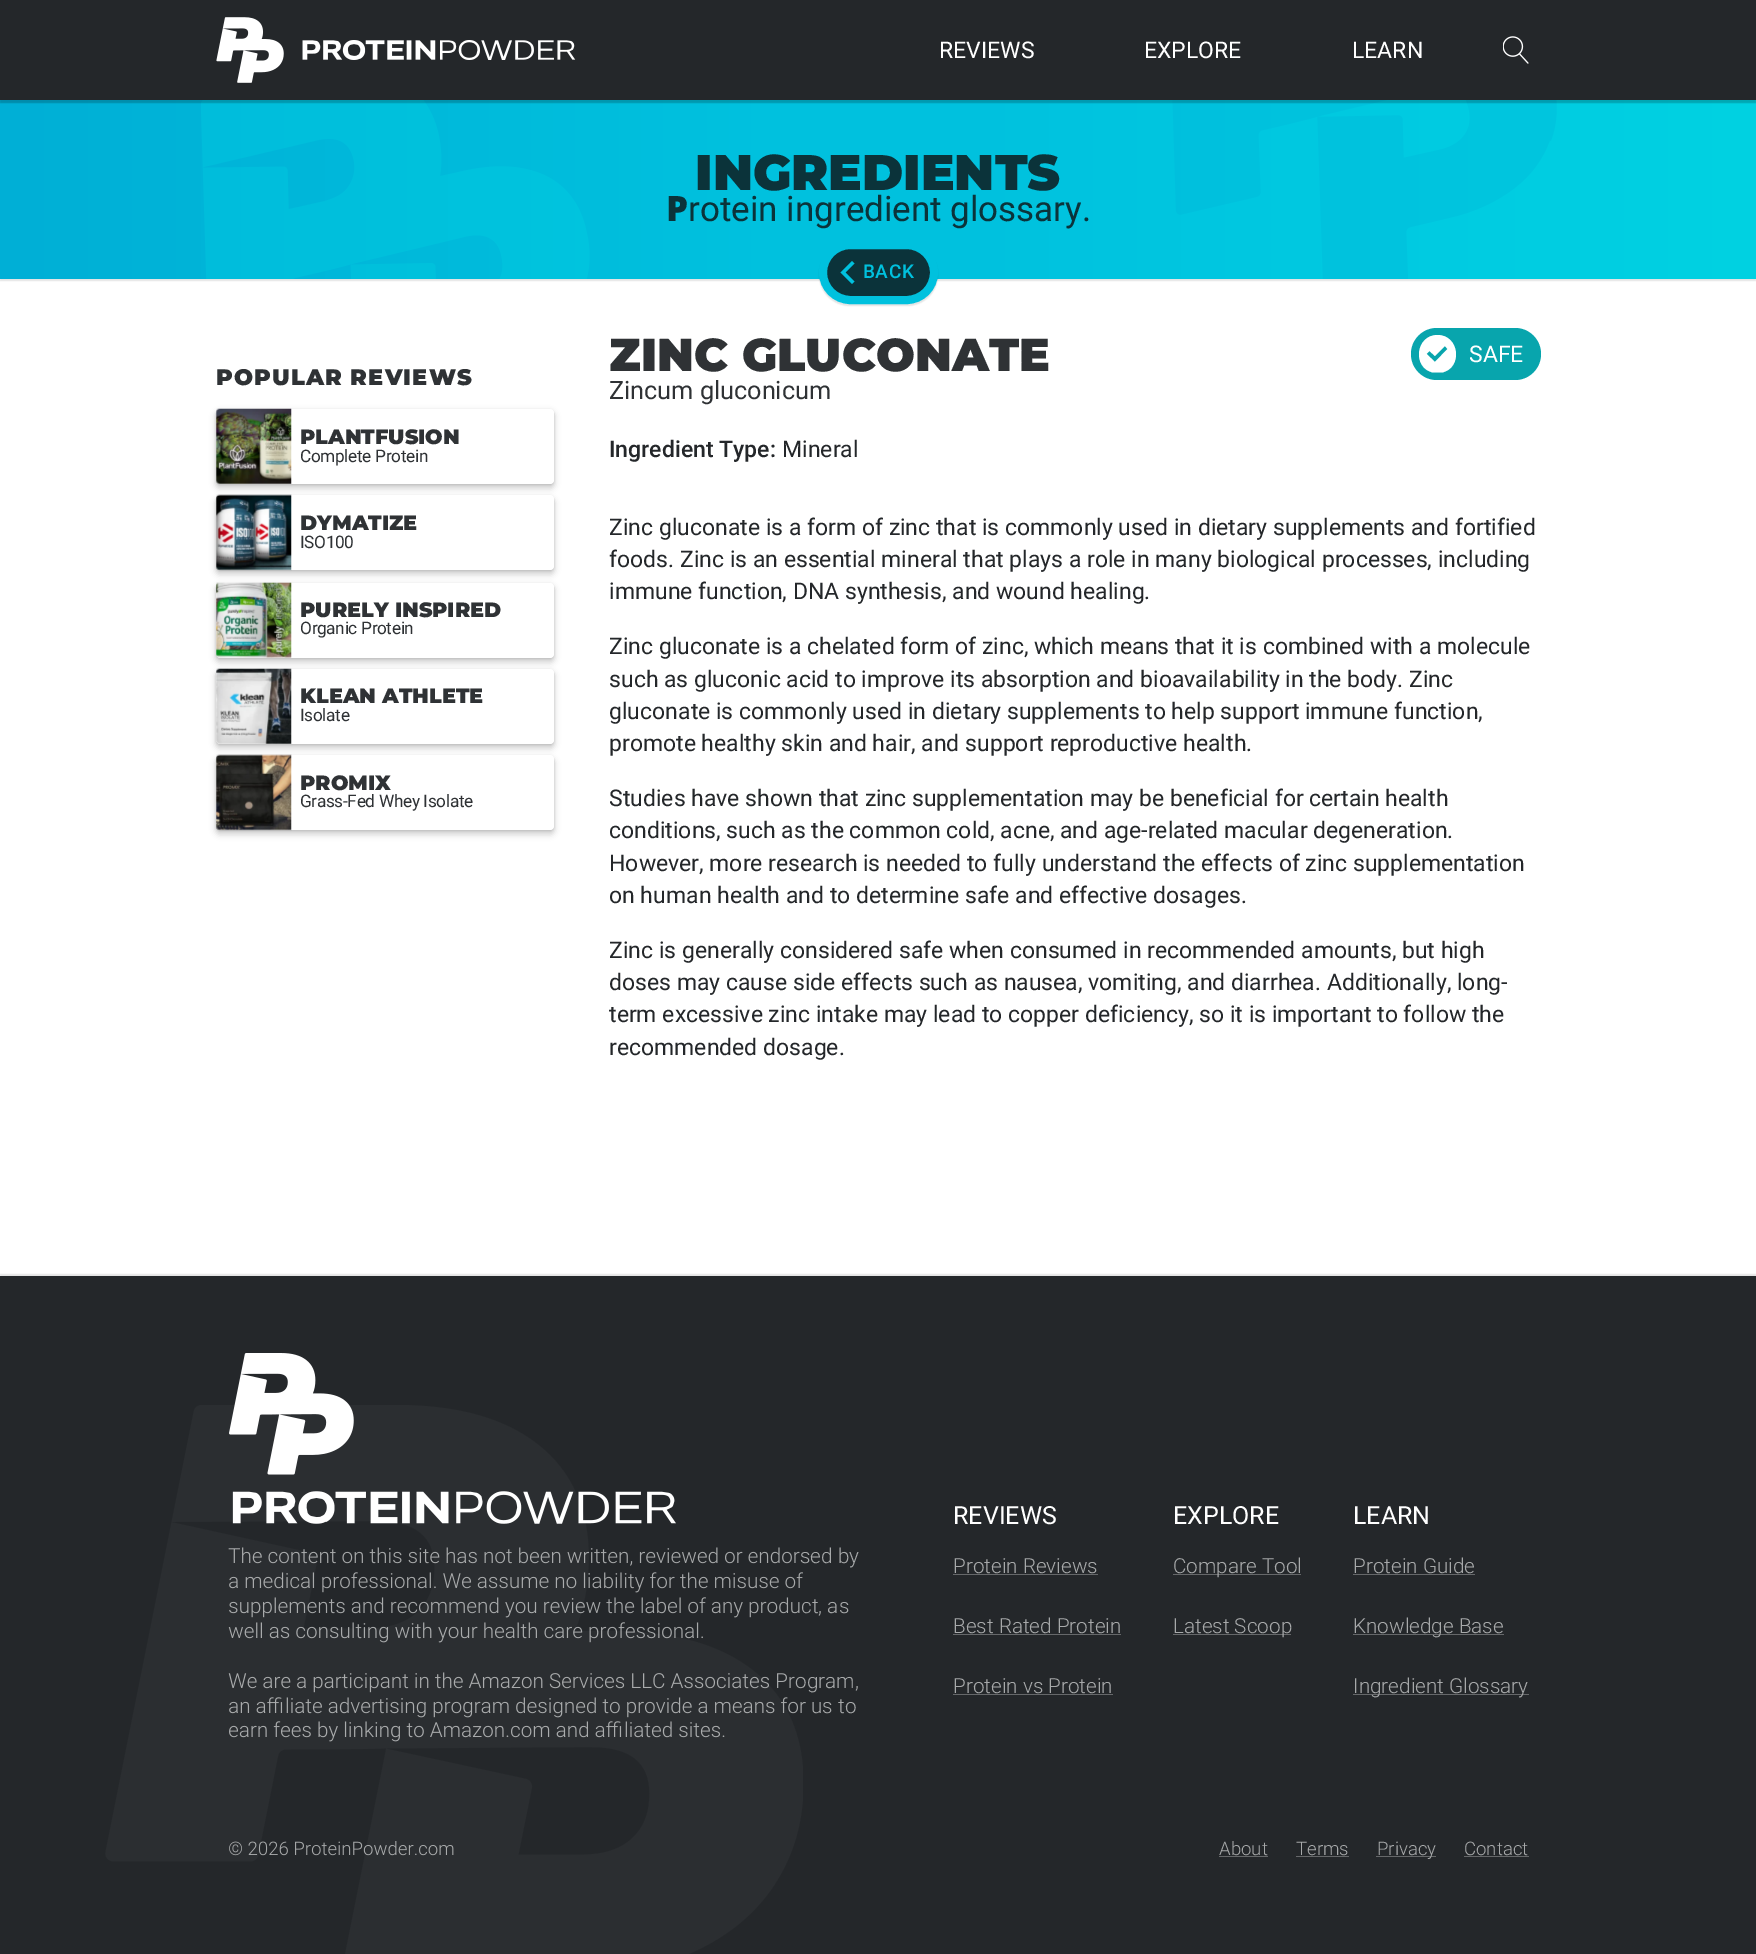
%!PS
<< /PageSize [1756 1954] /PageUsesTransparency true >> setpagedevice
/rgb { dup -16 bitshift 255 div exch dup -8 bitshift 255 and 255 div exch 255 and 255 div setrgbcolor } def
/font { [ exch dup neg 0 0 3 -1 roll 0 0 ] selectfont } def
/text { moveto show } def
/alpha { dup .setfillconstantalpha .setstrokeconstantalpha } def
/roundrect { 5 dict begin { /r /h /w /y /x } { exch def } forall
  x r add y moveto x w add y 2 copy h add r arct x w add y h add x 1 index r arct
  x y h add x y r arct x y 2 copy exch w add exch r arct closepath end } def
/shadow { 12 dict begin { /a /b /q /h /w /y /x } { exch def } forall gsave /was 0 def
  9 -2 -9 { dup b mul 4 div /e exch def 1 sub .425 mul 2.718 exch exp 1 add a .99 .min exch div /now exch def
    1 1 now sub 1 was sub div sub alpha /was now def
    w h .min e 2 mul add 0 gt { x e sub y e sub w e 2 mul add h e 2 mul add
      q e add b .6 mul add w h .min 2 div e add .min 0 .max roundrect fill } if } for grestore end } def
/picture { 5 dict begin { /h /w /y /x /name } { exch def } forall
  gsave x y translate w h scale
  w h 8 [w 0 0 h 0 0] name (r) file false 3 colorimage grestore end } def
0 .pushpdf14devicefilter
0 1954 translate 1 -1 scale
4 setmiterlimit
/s1 { /Roboto-Regular 23 font 16#FFFFFF rgb } def
/s2 { /Montserrat-Black 50 font 16#0B333A rgb } def
/s3 { /NotoSans-Black 35 font 16#0B333A rgb } def
/s4 { /Roboto-Regular 35 font 16#0B333A rgb } def
/s5 { /Montserrat-Black 20.7 font 16#2F3235 rgb } def
/s6 { /Montserrat-Black 46 font 16#2F3235 rgb } def
/s7 { /Roboto-Regular 25.25 font 16#2F3235 rgb } def
/s8 { /Roboto-Medium 23 font 16#24272A rgb } def
/s9 { /Roboto-Regular 23 font 16#24272A rgb } def
/s10 { /Roboto-Light 20.7 font 16#A7A9AA rgb } def
/s11 { /Roboto-Light 18.6 font 16#A7A9AA rgb } def
/s12 { /Roboto-Regular 25 font 16#FFFFFF rgb } def
16#24272A rgb
0 0 1756 1954 rectfill
16#FFFFFF rgb
0 279 1756 997 rectfill
16#000000 rgb
0 103 1756 178 0 0.5 0.1 shadow
gsave 0 100 moveto 1756 100 lineto 1756 279 lineto 0 279 lineto closepath clip newpath
<< /ShadingType 2 /ColorSpace /DeviceRGB /Coords [0 189 1756 189] /Extend [true true] /Function << /FunctionType 3 /Domain [0 1] /Functions [<< /FunctionType 2 /Domain [0 1] /C0 [0 0.686 0.839] /C1 [0 0.71 0.851] /N 1 >> << /FunctionType 2 /Domain [0 1] /C0 [0 0.71 0.851] /C1 [0 0.733 0.859] /N 1 >> << /FunctionType 2 /Domain [0 1] /C0 [0 0.733 0.859] /C1 [0 0.757 0.871] /N 1 >> << /FunctionType 2 /Domain [0 1] /C0 [0 0.757 0.871] /C1 [0 0.757 0.871] /N 1 >> << /FunctionType 2 /Domain [0 1] /C0 [0 0.757 0.871] /C1 [0 0.78 0.878] /N 1 >> << /FunctionType 2 /Domain [0 1] /C0 [0 0.78 0.878] /C1 [0 0.8 0.882] /N 1 >> << /FunctionType 2 /Domain [0 1] /C0 [0 0.8 0.882] /C1 [0 0.824 0.886] /N 1 >>] /Bounds [0.15 0.29 0.44 0.56 0.71 0.85] /Encode [0 1 0 1 0 1 0 1 0 1 0 1 0 1] >> >> shfill grestore
(pic4.raw) 201 100 1356 179 picture
gsave
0 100 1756 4 rectclip
0 3 1756 100 0 0.5 0.2 shadow
grestore
(pic1.raw) 216 17 68 66 picture
(pic2.raw) 302 40 274 20 picture
s1
(REVIEWS) 939 58 text
(EXPLORE) 1144 58 text
(LEARN) 1352 58 text
(pic3.raw) 1503 36 26 28 picture
s2
(INGREDIENTS) 695 190 text
s3
(P) 666 221 text
s4
(rotein ingredient glossary.) 688 221 text
16#000000 rgb
819 244 119 62 31 0.5 0.1 shadow
16#0B333A rgb
823 245 111 55 27.5 roundrect gsave fill grestore
16#00C1DE rgb
8 setlinewidth
stroke
854.5 263.5 moveto 845.5 272.5 lineto 854.5 281.5 lineto 852 284 lineto 840.5 272.5 lineto 852 261 lineto closepath fill
/Roboto-Medium 19 font
863 278 moveto 0.5 0 (BACK) ashow
/Montserrat-Black 22.5 font
16#2F3235 rgb
216 385 moveto 1.1 0 (POPULAR REVIEWS) ashow
16#000000 rgb
215 411 340 78 5 3 0.16 shadow
216 410 338 75 4 1 0.12 shadow
16#FFFFFF rgb
216 409 338 75 4 roundrect fill
(pic5.raw) 216 408 76 76 picture
s5
(PLANTFUSION) 300 444 text
/Roboto-Regular 17.25 font
300 462 moveto -0.35 0 (Complete Protein) ashow
16#000000 rgb
215 498 340 77 5 3 0.16 shadow
216 496 338 75 4 1 0.12 shadow
16#FFFFFF rgb
216 495 338 75 4 roundrect fill
(pic6.raw) 216 494 76 77 picture
s5
(DYMATIZE) 300 530 text
/Roboto-Regular 17.25 font
300 548 moveto -0.35 0 (ISO100) ashow
16#000000 rgb
215 585 340 78 5 3 0.16 shadow
216 584 338 75 4 1 0.12 shadow
16#FFFFFF rgb
216 583 338 75 4 roundrect fill
(pic7.raw) 216 582 76 76 picture
s5
(PURELY INSPIRED) 300 617 text
/Roboto-Regular 17.25 font
300 634 moveto -0.35 0 (Organic Protein) ashow
16#000000 rgb
215 671 340 78 5 3 0.16 shadow
216 670 338 75 4 1 0.12 shadow
16#FFFFFF rgb
216 669 338 75 4 roundrect fill
(pic8.raw) 216 668 76 76 picture
s5
(KLEAN ATHLETE) 300 703 text
/Roboto-Regular 17.25 font
300 721 moveto -0.35 0 (Isolate) ashow
16#000000 rgb
215 758 340 77 5 3 0.16 shadow
216 756 338 75 4 1 0.12 shadow
16#FFFFFF rgb
216 755 338 75 4 roundrect fill
(pic9.raw) 216 754 76 77 picture
s5
(PROMIX) 300 790 text
/Roboto-Regular 17.25 font
300 807 moveto -0.35 0 (Grass-Fed Whey Isolate) ashow
s6
(ZINC GLUCONATE) 609 371 text
s7
(Zincum gluconicum) 609 399 text
s8
(Ingredient Type:) 609 457 text
s9
(Mineral) 782 457 text
16#08A5AD rgb
1411 328 130 52 26 roundrect fill
16#FFFFFF rgb
1437.5 335 moveto 1415.5 335 1412 368 1433 372.5 curveto 1442 372.5 lineto 1463 368 1459.5 335 1437.5 335 curveto closepath 1435 362 moveto 1447.5 349 lineto 1445 346 lineto 1435 356 lineto 1429.5 351 lineto 1426.5 354 lineto closepath eofill
(SAFE) 1469 362 text
s9
(Zinc gluconate is a form of zinc that is commonly used in dietary supplements and fortified) 609 535 text
(foods. Zinc is an essential mineral that plays a role in many biological processes, including) 609 567 text
(immune function, DNA synthesis, and wound healing.) 609 599 text
(Zinc gluconate is a chelated form of zinc, which means that it is combined with a molecule) 609 654 text
(such as gluconic acid to improve its absorption and bioavailability in the body. Zinc) 609 687 text
(gluconate is commonly used in dietary supplements to help support immune function,) 609 719 text
(promote healthy skin and hair, and support reproductive health.) 609 751 text
(Studies have shown that zinc supplementation may be beneficial for certain health) 609 806 text
(conditions, such as the common cold, acne, and age-related macular degeneration.) 609 838 text
(However, more research is needed to fully understand the effects of zinc supplementation) 609 871 text
(on human health and to determine safe and effective dosages.) 609 903 text
(Zinc is generally considered safe when consumed in recommended amounts, but high) 609 958 text
(doses may cause side effects such as nausea, vomiting, and diarrhea. Additionally, long-) 609 990 text
(term excessive zinc intake may lead to copper deficiency, so it is important to follow the) 609 1022 text
(recommended dosage.) 609 1055 text
gsave
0 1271 moveto 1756 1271 lineto 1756 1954 lineto 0 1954 lineto closepath 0 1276 moveto 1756 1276 lineto 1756 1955 lineto 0 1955 lineto closepath eoclip newpath
16#000000 rgb
0 1274 1756 679 0 0.5 0.1 shadow
grestore
(pic10.raw) 229 1353 125 122 picture
(pic11.raw) 232 1491 444 33 picture
s10
(The content on this site has not been written, reviewed or endorsed by) 228 1563 text
(a medical professional. We assume no liability for the misuse of) 228 1588 text
(supplements and recommend you review the label of any product, as) 228 1613 text
(well as consulting with your health care professional.) 228 1638 text
(We are a participant in the Amazon Services LLC Associates Program,) 228 1688 text
(an affiliate advertising program designed to provide a means for us to) 228 1713 text
(earn fees by linking to Amazon.com and affiliated sites.) 228 1737 text
s11
(© 2026 ProteinPowder.com) 228 1855 text
(pic12.raw) 105 1405 698 549 picture
s12
(REVIEWS) 953 1524 text
s10
(Protein Reviews) 953 1573 text
16#66686A rgb
953 1574 145 1 rectfill
s10
(Best Rated Protein) 953 1633 text
16#66686A rgb
953 1634 168 1 rectfill
s10
(Protein vs Protein) 953 1693 text
16#66686A rgb
953 1694 160 1 rectfill
s12
(EXPLORE) 1173 1524 text
16#66686A rgb
1173 1574 128 1 rectfill
s10
(Compare Tool) 1173 1573 text
16#66686A rgb
1173 1634 118 1 rectfill
s10
(Latest Scoop) 1173 1633 text
s12
(LEARN) 1353 1524 text
s10
(Protein Guide) 1353 1573 text
16#66686A rgb
1353 1574 122 1 rectfill
1353 1634 151 1 rectfill
s10
(Knowledge Base) 1353 1633 text
16#66686A rgb
1353 1694 176 1 rectfill
s10
(Ingredient Glossary) 1353 1693 text
s11
(About) 1219 1855 text
16#66686A rgb
1219 1856 49 1 rectfill
s11
(Terms) 1296 1855 text
16#66686A rgb
1296 1856 53 1 rectfill
1376 1856 60 1 rectfill
s11
(Privacy) 1377 1855 text
(Contact) 1464 1855 text
16#66686A rgb
1464 1856 65 1 rectfill
.poppdf14devicefilter showpage
